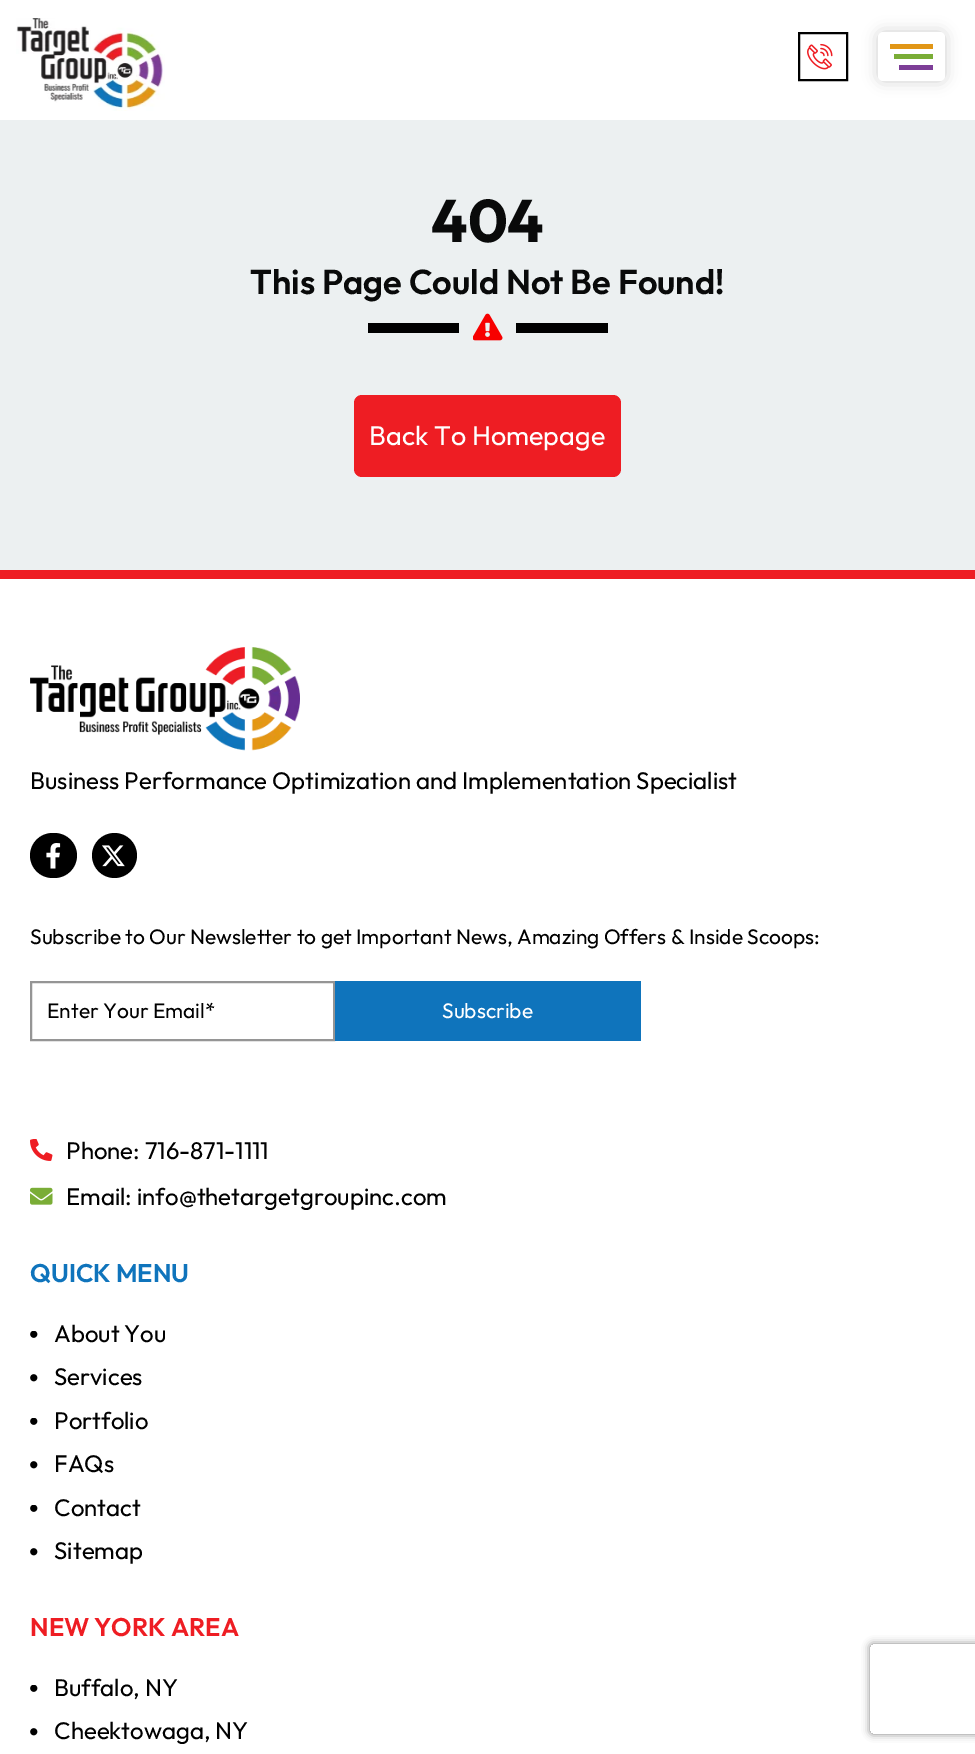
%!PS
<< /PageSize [975 1754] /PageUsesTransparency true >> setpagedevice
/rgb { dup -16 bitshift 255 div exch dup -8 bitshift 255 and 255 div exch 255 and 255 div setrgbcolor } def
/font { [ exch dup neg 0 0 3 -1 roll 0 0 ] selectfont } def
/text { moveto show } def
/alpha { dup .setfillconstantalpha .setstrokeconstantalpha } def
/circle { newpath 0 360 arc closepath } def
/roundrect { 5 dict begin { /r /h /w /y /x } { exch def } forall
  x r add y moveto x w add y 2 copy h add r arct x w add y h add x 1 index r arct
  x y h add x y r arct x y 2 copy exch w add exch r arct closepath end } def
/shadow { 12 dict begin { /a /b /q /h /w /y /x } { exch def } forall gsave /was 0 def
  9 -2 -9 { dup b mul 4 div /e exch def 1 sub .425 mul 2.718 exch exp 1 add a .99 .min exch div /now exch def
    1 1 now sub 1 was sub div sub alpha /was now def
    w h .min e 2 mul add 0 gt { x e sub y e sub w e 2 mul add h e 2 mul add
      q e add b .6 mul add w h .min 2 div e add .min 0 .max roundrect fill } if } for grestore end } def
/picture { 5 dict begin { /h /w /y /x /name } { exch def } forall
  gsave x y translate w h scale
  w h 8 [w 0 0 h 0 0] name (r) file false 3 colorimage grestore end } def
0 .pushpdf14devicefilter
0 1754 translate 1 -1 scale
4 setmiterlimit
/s1 { /Outfit-Bold 60 font 16#090A0A rgb } def
/s2 { /Outfit-SemiBold 34.5 font 16#090A0A rgb } def
/s3 { /Outfit-Regular 27 font 16#FFFFFF rgb } def
/s4 { /Outfit-Regular 24 font 16#000000 rgb } def
/s5 { /Outfit-Regular 21 font 16#000000 rgb } def
/s6 { /Outfit-Regular 21 font 16#FFFFFF rgb } def
/s7 { /Outfit-SemiBold 25.5 font 16#0F74BC rgb } def
/s8 { /Outfit-SemiBold 25.5 font 16#EE1D23 rgb } def
16#FFFFFF rgb
0 0 975 1754 rectfill
(pic1.raw) 16 18 149 93 picture
16#000000 rgb
2 setlinewidth
799 33 48 47 rectstroke
(pic2.raw) 807 43 26 27 picture
16#4E4E4E rgb
878 32 67 49 5 7.5 0.29 shadow
16#FFFFFF rgb
878 32 67 49 5 roundrect fill
16#E19616 rgb
890 44 43 5 rectfill
16#7AAD36 rgb
894 54 39 5 rectfill
16#7D3E97 rgb
899 65 34 5 rectfill
16#ECF0F1 rgb
0 120 975 450 rectfill
s1
(404) 431 242 text
s2
(This Page Could Not Be Found!) 250 294 text
16#000000 rgb
368 323 91 10 rectfill
(pic3.raw) 473 313 30 28 picture
516 323 92 10 rectfill
16#EE1D23 rgb
354 395 267 82 8 roundrect fill
s3
(Back To Homepage) 369 445 text
16#EE1D23 rgb
0 570 975 9 rectfill
(pic4.raw) 30 647 270 104 picture
s4
(Business Performance Optimization and Implementation Specialist) 30 789 text
30 833 47 45 22.5 roundrect fill
(pic5.raw) 46 843 15 26 picture
114.5 855.5 22.5 circle fill
(pic6.raw) 102 845 23 22 picture
s5
(Subscribe to Our Newsletter to get Important News, Amazing Offers & Inside Scoops:) 30 944 text
16#959595 rgb
31 982 303 58 rectstroke
s5
(Enter Your Email*) 47 1018 text
16#0F74BC rgb
335 981 306 60 rectfill
s6
(Subscribe) 442 1018 text
(pic7.raw) 30 1139 23 22 picture
s4
(Phone: 716-871-1111) 66 1159 text
(pic8.raw) 30 1187 23 18 picture
(Email: info@thetargetgroupinc.com) 66 1205 text
s7
(QUICK MENU) 30 1282 text
(pic9.raw) 30 1331 8 7 picture
s4
(About You) 54 1342 text
(pic10.raw) 30 1374 8 8 picture
(Services) 54 1385 text
(pic9.raw) 30 1418 8 7 picture
(Portfolio) 54 1429 text
(pic10.raw) 30 1461 8 8 picture
(FAQs) 54 1472 text
(pic9.raw) 30 1505 8 7 picture
(Contact) 54 1516 text
(pic10.raw) 30 1548 8 8 picture
(Sitemap) 54 1559 text
s8
(NEW YORK AREA) 30 1636 text
(pic9.raw) 30 1685 8 7 picture
s4
(Buffalo, NY) 54 1696 text
(pic10.raw) 30 1728 8 8 picture
(Cheektowaga, NY) 54 1739 text
gsave
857 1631 moveto 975 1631 lineto 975 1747 lineto 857 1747 lineto closepath 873 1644 moveto 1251 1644 lineto 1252.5 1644 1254 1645.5 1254 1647 curveto 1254 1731 lineto 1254 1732.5 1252.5 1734 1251 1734 curveto 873 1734 lineto 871.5 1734 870 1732.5 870 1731 curveto 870 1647 lineto 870 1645.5 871.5 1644 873 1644 curveto closepath eoclip newpath
16#808080 rgb
870 1644 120 90 3 4 1 shadow
grestore
.poppdf14devicefilter showpage
